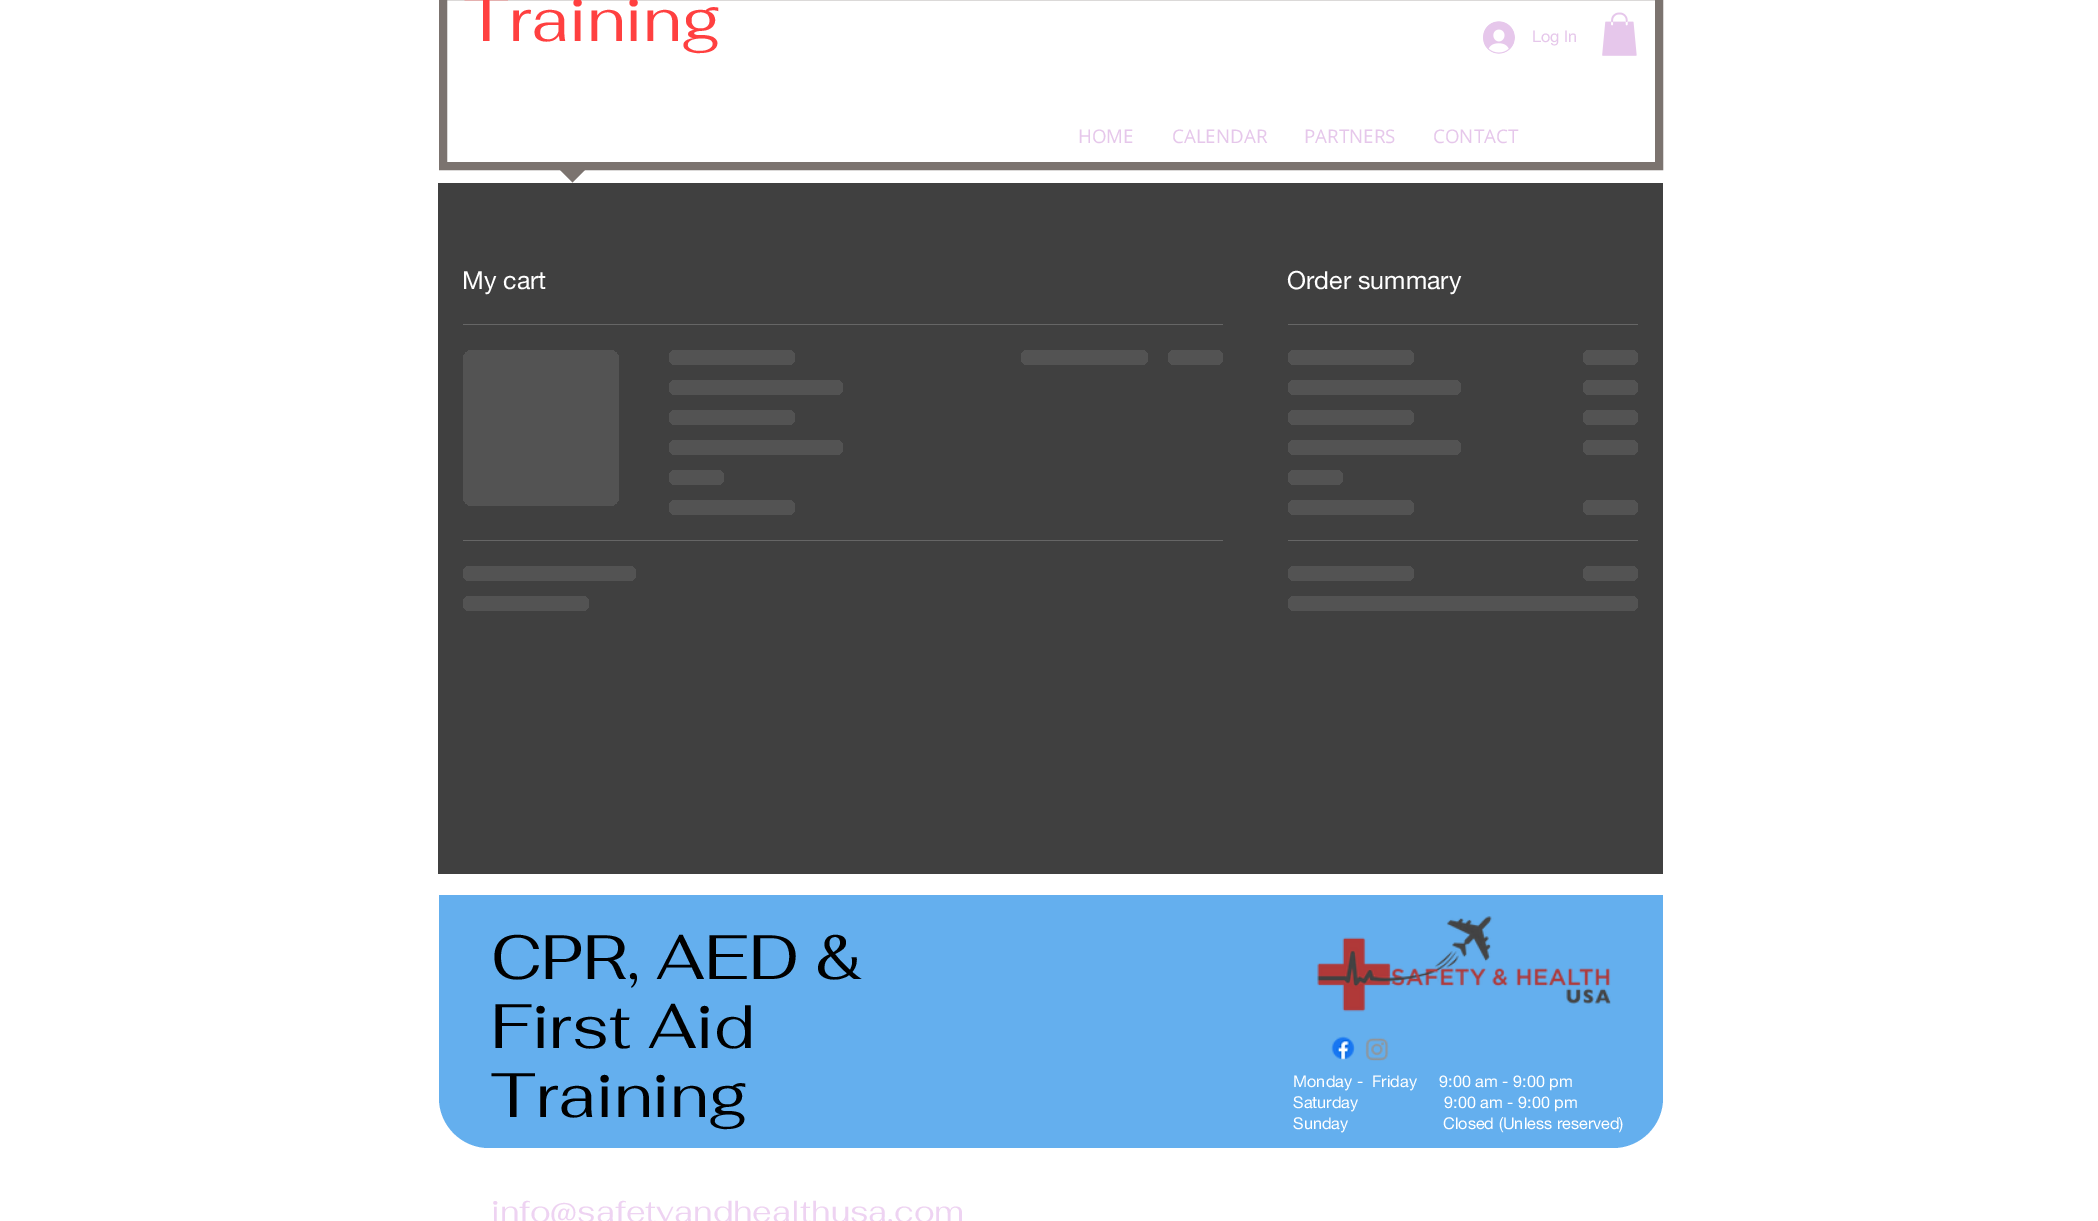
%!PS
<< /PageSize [2098 1221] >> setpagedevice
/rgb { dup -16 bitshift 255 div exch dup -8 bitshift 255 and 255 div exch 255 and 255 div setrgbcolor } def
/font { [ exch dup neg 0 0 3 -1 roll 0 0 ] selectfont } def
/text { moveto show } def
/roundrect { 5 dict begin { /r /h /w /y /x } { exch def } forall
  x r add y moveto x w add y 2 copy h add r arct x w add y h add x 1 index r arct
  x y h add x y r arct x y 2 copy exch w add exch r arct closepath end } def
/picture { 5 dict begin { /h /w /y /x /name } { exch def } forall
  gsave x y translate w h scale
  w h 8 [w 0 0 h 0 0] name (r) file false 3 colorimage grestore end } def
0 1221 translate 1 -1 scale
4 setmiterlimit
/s1 { /Fahkwang-Regular 62.5 font 16#FF4040 rgb } def
/s2 { /helveticaneue-Regular 16.25 font 16#E6C7EB rgb } def
/s3 { /OpenSans-Regular 18.75 font 16#E6C7EB rgb } def
/s4 { /helveticaneue-Regular 25 font 16#FFFFFF rgb } def
/s5 { /Fahkwang-Regular 62.5 font 16#000000 rgb } def
/s6 { /helveticaneue-Regular 16.25 font 16#FFFFFF rgb } def
/s7 { /Fahkwang-Regular 31.25 font 16#EED3F2 rgb } def
16#FFFFFF rgb
0 0 2098 1221 rectfill
16#7B736F rgb
8 setlinewidth
443 -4 1216 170 rectstroke
s1
(Training) 464 41 text
(pic1.raw) 1483 21 32 33 picture
s2
(Log In) 1532 42 text
(pic2.raw) 1602 12 35 44 picture
s3
(HOME) 1078 143 text
(CALENDAR) 1172 143 text
(PARTNERS) 1304 143 text
(CONTACT) 1433 143 text
16#7B736F rgb
560 170 moveto 585 170 lineto 572.5 182.5 lineto closepath fill
16#404040 rgb
438 183 1225 691 rectfill
16#666666 rgb
463 324 760 1 rectfill
s4
(My cart) 462 289 text
gsave 463 350 156 156 10 roundrect clip newpath
<< /ShadingType 2 /ColorSpace /DeviceRGB /Coords [463 428 1088 428] /Extend [true true] /Function << /FunctionType 3 /Domain [0 1] /Functions [<< /FunctionType 2 /Domain [0 1] /C0 [0.325 0.325 0.325] /C1 [0.325 0.325 0.325] /N 1 >> << /FunctionType 2 /Domain [0 1] /C0 [0.325 0.325 0.325] /C1 [0.4 0.4 0.4] /N 1 >> << /FunctionType 2 /Domain [0 1] /C0 [0.4 0.4 0.4] /C1 [0.325 0.325 0.325] /N 1 >> << /FunctionType 2 /Domain [0 1] /C0 [0.325 0.325 0.325] /C1 [0.325 0.325 0.325] /N 1 >>] /Bounds [0.25 0.37 0.63] /Encode [0 1 0 1 0 1 0 1] >> >> shfill grestore
gsave 669 350 126 15 7.5 roundrect clip newpath
<< /ShadingType 2 /ColorSpace /DeviceRGB /Coords [669 358 1174 358] /Extend [true true] /Function << /FunctionType 3 /Domain [0 1] /Functions [<< /FunctionType 2 /Domain [0 1] /C0 [0.325 0.325 0.325] /C1 [0.325 0.325 0.325] /N 1 >> << /FunctionType 2 /Domain [0 1] /C0 [0.325 0.325 0.325] /C1 [0.4 0.4 0.4] /N 1 >> << /FunctionType 2 /Domain [0 1] /C0 [0.4 0.4 0.4] /C1 [0.325 0.325 0.325] /N 1 >> << /FunctionType 2 /Domain [0 1] /C0 [0.325 0.325 0.325] /C1 [0.325 0.325 0.325] /N 1 >>] /Bounds [0.25 0.37 0.63] /Encode [0 1 0 1 0 1 0 1] >> >> shfill grestore
gsave 669 380 174 15 7.5 roundrect clip newpath
<< /ShadingType 2 /ColorSpace /DeviceRGB /Coords [669 388 1364 388] /Extend [true true] /Function << /FunctionType 3 /Domain [0 1] /Functions [<< /FunctionType 2 /Domain [0 1] /C0 [0.325 0.325 0.325] /C1 [0.325 0.325 0.325] /N 1 >> << /FunctionType 2 /Domain [0 1] /C0 [0.325 0.325 0.325] /C1 [0.4 0.4 0.4] /N 1 >> << /FunctionType 2 /Domain [0 1] /C0 [0.4 0.4 0.4] /C1 [0.325 0.325 0.325] /N 1 >> << /FunctionType 2 /Domain [0 1] /C0 [0.325 0.325 0.325] /C1 [0.325 0.325 0.325] /N 1 >>] /Bounds [0.25 0.37 0.63] /Encode [0 1 0 1 0 1 0 1] >> >> shfill grestore
gsave 669 410 126 15 7.5 roundrect clip newpath
<< /ShadingType 2 /ColorSpace /DeviceRGB /Coords [669 418 1174 418] /Extend [true true] /Function << /FunctionType 3 /Domain [0 1] /Functions [<< /FunctionType 2 /Domain [0 1] /C0 [0.325 0.325 0.325] /C1 [0.325 0.325 0.325] /N 1 >> << /FunctionType 2 /Domain [0 1] /C0 [0.325 0.325 0.325] /C1 [0.4 0.4 0.4] /N 1 >> << /FunctionType 2 /Domain [0 1] /C0 [0.4 0.4 0.4] /C1 [0.325 0.325 0.325] /N 1 >> << /FunctionType 2 /Domain [0 1] /C0 [0.325 0.325 0.325] /C1 [0.325 0.325 0.325] /N 1 >>] /Bounds [0.25 0.37 0.63] /Encode [0 1 0 1 0 1 0 1] >> >> shfill grestore
gsave 669 440 174 15 7.5 roundrect clip newpath
<< /ShadingType 2 /ColorSpace /DeviceRGB /Coords [669 448 1364 448] /Extend [true true] /Function << /FunctionType 3 /Domain [0 1] /Functions [<< /FunctionType 2 /Domain [0 1] /C0 [0.325 0.325 0.325] /C1 [0.325 0.325 0.325] /N 1 >> << /FunctionType 2 /Domain [0 1] /C0 [0.325 0.325 0.325] /C1 [0.4 0.4 0.4] /N 1 >> << /FunctionType 2 /Domain [0 1] /C0 [0.4 0.4 0.4] /C1 [0.325 0.325 0.325] /N 1 >> << /FunctionType 2 /Domain [0 1] /C0 [0.325 0.325 0.325] /C1 [0.325 0.325 0.325] /N 1 >>] /Bounds [0.25 0.37 0.63] /Encode [0 1 0 1 0 1 0 1] >> >> shfill grestore
gsave 669 470 55 15 7.5 roundrect clip newpath
<< /ShadingType 2 /ColorSpace /DeviceRGB /Coords [669 478 889 478] /Extend [true true] /Function << /FunctionType 3 /Domain [0 1] /Functions [<< /FunctionType 2 /Domain [0 1] /C0 [0.325 0.325 0.325] /C1 [0.325 0.325 0.325] /N 1 >> << /FunctionType 2 /Domain [0 1] /C0 [0.325 0.325 0.325] /C1 [0.4 0.4 0.4] /N 1 >> << /FunctionType 2 /Domain [0 1] /C0 [0.4 0.4 0.4] /C1 [0.325 0.325 0.325] /N 1 >> << /FunctionType 2 /Domain [0 1] /C0 [0.325 0.325 0.325] /C1 [0.325 0.325 0.325] /N 1 >>] /Bounds [0.25 0.37 0.63] /Encode [0 1 0 1 0 1 0 1] >> >> shfill grestore
gsave 669 500 126 15 7.5 roundrect clip newpath
<< /ShadingType 2 /ColorSpace /DeviceRGB /Coords [669 508 1174 508] /Extend [true true] /Function << /FunctionType 3 /Domain [0 1] /Functions [<< /FunctionType 2 /Domain [0 1] /C0 [0.325 0.325 0.325] /C1 [0.325 0.325 0.325] /N 1 >> << /FunctionType 2 /Domain [0 1] /C0 [0.325 0.325 0.325] /C1 [0.4 0.4 0.4] /N 1 >> << /FunctionType 2 /Domain [0 1] /C0 [0.4 0.4 0.4] /C1 [0.325 0.325 0.325] /N 1 >> << /FunctionType 2 /Domain [0 1] /C0 [0.325 0.325 0.325] /C1 [0.325 0.325 0.325] /N 1 >>] /Bounds [0.25 0.37 0.63] /Encode [0 1 0 1 0 1 0 1] >> >> shfill grestore
gsave 1021 350 127 15 7.5 roundrect clip newpath
<< /ShadingType 2 /ColorSpace /DeviceRGB /Coords [1021 358 1526 358] /Extend [true true] /Function << /FunctionType 3 /Domain [0 1] /Functions [<< /FunctionType 2 /Domain [0 1] /C0 [0.325 0.325 0.325] /C1 [0.325 0.325 0.325] /N 1 >> << /FunctionType 2 /Domain [0 1] /C0 [0.325 0.325 0.325] /C1 [0.4 0.4 0.4] /N 1 >> << /FunctionType 2 /Domain [0 1] /C0 [0.4 0.4 0.4] /C1 [0.325 0.325 0.325] /N 1 >> << /FunctionType 2 /Domain [0 1] /C0 [0.325 0.325 0.325] /C1 [0.325 0.325 0.325] /N 1 >>] /Bounds [0.25 0.37 0.63] /Encode [0 1 0 1 0 1 0 1] >> >> shfill grestore
gsave 1168 350 55 15 7.5 roundrect clip newpath
<< /ShadingType 2 /ColorSpace /DeviceRGB /Coords [1168 358 1388 358] /Extend [true true] /Function << /FunctionType 3 /Domain [0 1] /Functions [<< /FunctionType 2 /Domain [0 1] /C0 [0.325 0.325 0.325] /C1 [0.325 0.325 0.325] /N 1 >> << /FunctionType 2 /Domain [0 1] /C0 [0.325 0.325 0.325] /C1 [0.4 0.4 0.4] /N 1 >> << /FunctionType 2 /Domain [0 1] /C0 [0.4 0.4 0.4] /C1 [0.325 0.325 0.325] /N 1 >> << /FunctionType 2 /Domain [0 1] /C0 [0.325 0.325 0.325] /C1 [0.325 0.325 0.325] /N 1 >>] /Bounds [0.25 0.37 0.63] /Encode [0 1 0 1 0 1 0 1] >> >> shfill grestore
16#666666 rgb
463 540 760 1 rectfill
gsave 463 566 173 15 7.5 roundrect clip newpath
<< /ShadingType 2 /ColorSpace /DeviceRGB /Coords [463 574 1158 574] /Extend [true true] /Function << /FunctionType 3 /Domain [0 1] /Functions [<< /FunctionType 2 /Domain [0 1] /C0 [0.325 0.325 0.325] /C1 [0.325 0.325 0.325] /N 1 >> << /FunctionType 2 /Domain [0 1] /C0 [0.325 0.325 0.325] /C1 [0.4 0.4 0.4] /N 1 >> << /FunctionType 2 /Domain [0 1] /C0 [0.4 0.4 0.4] /C1 [0.325 0.325 0.325] /N 1 >> << /FunctionType 2 /Domain [0 1] /C0 [0.325 0.325 0.325] /C1 [0.325 0.325 0.325] /N 1 >>] /Bounds [0.25 0.37 0.63] /Encode [0 1 0 1 0 1 0 1] >> >> shfill grestore
gsave 463 596 126 15 7.5 roundrect clip newpath
<< /ShadingType 2 /ColorSpace /DeviceRGB /Coords [463 604 968 604] /Extend [true true] /Function << /FunctionType 3 /Domain [0 1] /Functions [<< /FunctionType 2 /Domain [0 1] /C0 [0.325 0.325 0.325] /C1 [0.325 0.325 0.325] /N 1 >> << /FunctionType 2 /Domain [0 1] /C0 [0.325 0.325 0.325] /C1 [0.4 0.4 0.4] /N 1 >> << /FunctionType 2 /Domain [0 1] /C0 [0.4 0.4 0.4] /C1 [0.325 0.325 0.325] /N 1 >> << /FunctionType 2 /Domain [0 1] /C0 [0.325 0.325 0.325] /C1 [0.325 0.325 0.325] /N 1 >>] /Bounds [0.25 0.37 0.63] /Encode [0 1 0 1 0 1 0 1] >> >> shfill grestore
1288 324 350 1 rectfill
s4
(Order summary) 1287 289 text
gsave 1288 350 126 15 7.5 roundrect clip newpath
<< /ShadingType 2 /ColorSpace /DeviceRGB /Coords [1288 358 1793 358] /Extend [true true] /Function << /FunctionType 3 /Domain [0 1] /Functions [<< /FunctionType 2 /Domain [0 1] /C0 [0.325 0.325 0.325] /C1 [0.325 0.325 0.325] /N 1 >> << /FunctionType 2 /Domain [0 1] /C0 [0.325 0.325 0.325] /C1 [0.4 0.4 0.4] /N 1 >> << /FunctionType 2 /Domain [0 1] /C0 [0.4 0.4 0.4] /C1 [0.325 0.325 0.325] /N 1 >> << /FunctionType 2 /Domain [0 1] /C0 [0.325 0.325 0.325] /C1 [0.325 0.325 0.325] /N 1 >>] /Bounds [0.25 0.37 0.63] /Encode [0 1 0 1 0 1 0 1] >> >> shfill grestore
gsave 1583 350 55 15 7.5 roundrect clip newpath
<< /ShadingType 2 /ColorSpace /DeviceRGB /Coords [1583 358 1803 358] /Extend [true true] /Function << /FunctionType 3 /Domain [0 1] /Functions [<< /FunctionType 2 /Domain [0 1] /C0 [0.325 0.325 0.325] /C1 [0.325 0.325 0.325] /N 1 >> << /FunctionType 2 /Domain [0 1] /C0 [0.325 0.325 0.325] /C1 [0.4 0.4 0.4] /N 1 >> << /FunctionType 2 /Domain [0 1] /C0 [0.4 0.4 0.4] /C1 [0.325 0.325 0.325] /N 1 >> << /FunctionType 2 /Domain [0 1] /C0 [0.325 0.325 0.325] /C1 [0.325 0.325 0.325] /N 1 >>] /Bounds [0.25 0.37 0.63] /Encode [0 1 0 1 0 1 0 1] >> >> shfill grestore
gsave 1288 380 173 15 7.5 roundrect clip newpath
<< /ShadingType 2 /ColorSpace /DeviceRGB /Coords [1288 388 1983 388] /Extend [true true] /Function << /FunctionType 3 /Domain [0 1] /Functions [<< /FunctionType 2 /Domain [0 1] /C0 [0.325 0.325 0.325] /C1 [0.325 0.325 0.325] /N 1 >> << /FunctionType 2 /Domain [0 1] /C0 [0.325 0.325 0.325] /C1 [0.4 0.4 0.4] /N 1 >> << /FunctionType 2 /Domain [0 1] /C0 [0.4 0.4 0.4] /C1 [0.325 0.325 0.325] /N 1 >> << /FunctionType 2 /Domain [0 1] /C0 [0.325 0.325 0.325] /C1 [0.325 0.325 0.325] /N 1 >>] /Bounds [0.25 0.37 0.63] /Encode [0 1 0 1 0 1 0 1] >> >> shfill grestore
gsave 1583 380 55 15 7.5 roundrect clip newpath
<< /ShadingType 2 /ColorSpace /DeviceRGB /Coords [1583 388 1803 388] /Extend [true true] /Function << /FunctionType 3 /Domain [0 1] /Functions [<< /FunctionType 2 /Domain [0 1] /C0 [0.325 0.325 0.325] /C1 [0.325 0.325 0.325] /N 1 >> << /FunctionType 2 /Domain [0 1] /C0 [0.325 0.325 0.325] /C1 [0.4 0.4 0.4] /N 1 >> << /FunctionType 2 /Domain [0 1] /C0 [0.4 0.4 0.4] /C1 [0.325 0.325 0.325] /N 1 >> << /FunctionType 2 /Domain [0 1] /C0 [0.325 0.325 0.325] /C1 [0.325 0.325 0.325] /N 1 >>] /Bounds [0.25 0.37 0.63] /Encode [0 1 0 1 0 1 0 1] >> >> shfill grestore
gsave 1288 410 126 15 7.5 roundrect clip newpath
<< /ShadingType 2 /ColorSpace /DeviceRGB /Coords [1288 418 1793 418] /Extend [true true] /Function << /FunctionType 3 /Domain [0 1] /Functions [<< /FunctionType 2 /Domain [0 1] /C0 [0.325 0.325 0.325] /C1 [0.325 0.325 0.325] /N 1 >> << /FunctionType 2 /Domain [0 1] /C0 [0.325 0.325 0.325] /C1 [0.4 0.4 0.4] /N 1 >> << /FunctionType 2 /Domain [0 1] /C0 [0.4 0.4 0.4] /C1 [0.325 0.325 0.325] /N 1 >> << /FunctionType 2 /Domain [0 1] /C0 [0.325 0.325 0.325] /C1 [0.325 0.325 0.325] /N 1 >>] /Bounds [0.25 0.37 0.63] /Encode [0 1 0 1 0 1 0 1] >> >> shfill grestore
gsave 1583 410 55 15 7.5 roundrect clip newpath
<< /ShadingType 2 /ColorSpace /DeviceRGB /Coords [1583 418 1803 418] /Extend [true true] /Function << /FunctionType 3 /Domain [0 1] /Functions [<< /FunctionType 2 /Domain [0 1] /C0 [0.325 0.325 0.325] /C1 [0.325 0.325 0.325] /N 1 >> << /FunctionType 2 /Domain [0 1] /C0 [0.325 0.325 0.325] /C1 [0.4 0.4 0.4] /N 1 >> << /FunctionType 2 /Domain [0 1] /C0 [0.4 0.4 0.4] /C1 [0.325 0.325 0.325] /N 1 >> << /FunctionType 2 /Domain [0 1] /C0 [0.325 0.325 0.325] /C1 [0.325 0.325 0.325] /N 1 >>] /Bounds [0.25 0.37 0.63] /Encode [0 1 0 1 0 1 0 1] >> >> shfill grestore
gsave 1288 440 173 15 7.5 roundrect clip newpath
<< /ShadingType 2 /ColorSpace /DeviceRGB /Coords [1288 448 1983 448] /Extend [true true] /Function << /FunctionType 3 /Domain [0 1] /Functions [<< /FunctionType 2 /Domain [0 1] /C0 [0.325 0.325 0.325] /C1 [0.325 0.325 0.325] /N 1 >> << /FunctionType 2 /Domain [0 1] /C0 [0.325 0.325 0.325] /C1 [0.4 0.4 0.4] /N 1 >> << /FunctionType 2 /Domain [0 1] /C0 [0.4 0.4 0.4] /C1 [0.325 0.325 0.325] /N 1 >> << /FunctionType 2 /Domain [0 1] /C0 [0.325 0.325 0.325] /C1 [0.325 0.325 0.325] /N 1 >>] /Bounds [0.25 0.37 0.63] /Encode [0 1 0 1 0 1 0 1] >> >> shfill grestore
gsave 1583 440 55 15 7.5 roundrect clip newpath
<< /ShadingType 2 /ColorSpace /DeviceRGB /Coords [1583 448 1803 448] /Extend [true true] /Function << /FunctionType 3 /Domain [0 1] /Functions [<< /FunctionType 2 /Domain [0 1] /C0 [0.325 0.325 0.325] /C1 [0.325 0.325 0.325] /N 1 >> << /FunctionType 2 /Domain [0 1] /C0 [0.325 0.325 0.325] /C1 [0.4 0.4 0.4] /N 1 >> << /FunctionType 2 /Domain [0 1] /C0 [0.4 0.4 0.4] /C1 [0.325 0.325 0.325] /N 1 >> << /FunctionType 2 /Domain [0 1] /C0 [0.325 0.325 0.325] /C1 [0.325 0.325 0.325] /N 1 >>] /Bounds [0.25 0.37 0.63] /Encode [0 1 0 1 0 1 0 1] >> >> shfill grestore
gsave 1288 470 55 15 7.5 roundrect clip newpath
<< /ShadingType 2 /ColorSpace /DeviceRGB /Coords [1288 478 1508 478] /Extend [true true] /Function << /FunctionType 3 /Domain [0 1] /Functions [<< /FunctionType 2 /Domain [0 1] /C0 [0.325 0.325 0.325] /C1 [0.325 0.325 0.325] /N 1 >> << /FunctionType 2 /Domain [0 1] /C0 [0.325 0.325 0.325] /C1 [0.4 0.4 0.4] /N 1 >> << /FunctionType 2 /Domain [0 1] /C0 [0.4 0.4 0.4] /C1 [0.325 0.325 0.325] /N 1 >> << /FunctionType 2 /Domain [0 1] /C0 [0.325 0.325 0.325] /C1 [0.325 0.325 0.325] /N 1 >>] /Bounds [0.25 0.37 0.63] /Encode [0 1 0 1 0 1 0 1] >> >> shfill grestore
gsave 1288 500 126 15 7.5 roundrect clip newpath
<< /ShadingType 2 /ColorSpace /DeviceRGB /Coords [1288 508 1793 508] /Extend [true true] /Function << /FunctionType 3 /Domain [0 1] /Functions [<< /FunctionType 2 /Domain [0 1] /C0 [0.325 0.325 0.325] /C1 [0.325 0.325 0.325] /N 1 >> << /FunctionType 2 /Domain [0 1] /C0 [0.325 0.325 0.325] /C1 [0.4 0.4 0.4] /N 1 >> << /FunctionType 2 /Domain [0 1] /C0 [0.4 0.4 0.4] /C1 [0.325 0.325 0.325] /N 1 >> << /FunctionType 2 /Domain [0 1] /C0 [0.325 0.325 0.325] /C1 [0.325 0.325 0.325] /N 1 >>] /Bounds [0.25 0.37 0.63] /Encode [0 1 0 1 0 1 0 1] >> >> shfill grestore
gsave 1583 500 55 15 7.5 roundrect clip newpath
<< /ShadingType 2 /ColorSpace /DeviceRGB /Coords [1583 508 1803 508] /Extend [true true] /Function << /FunctionType 3 /Domain [0 1] /Functions [<< /FunctionType 2 /Domain [0 1] /C0 [0.325 0.325 0.325] /C1 [0.325 0.325 0.325] /N 1 >> << /FunctionType 2 /Domain [0 1] /C0 [0.325 0.325 0.325] /C1 [0.4 0.4 0.4] /N 1 >> << /FunctionType 2 /Domain [0 1] /C0 [0.4 0.4 0.4] /C1 [0.325 0.325 0.325] /N 1 >> << /FunctionType 2 /Domain [0 1] /C0 [0.325 0.325 0.325] /C1 [0.325 0.325 0.325] /N 1 >>] /Bounds [0.25 0.37 0.63] /Encode [0 1 0 1 0 1 0 1] >> >> shfill grestore
16#666666 rgb
1288 540 350 1 rectfill
gsave 1288 566 126 15 7.5 roundrect clip newpath
<< /ShadingType 2 /ColorSpace /DeviceRGB /Coords [1288 574 1793 574] /Extend [true true] /Function << /FunctionType 3 /Domain [0 1] /Functions [<< /FunctionType 2 /Domain [0 1] /C0 [0.325 0.325 0.325] /C1 [0.325 0.325 0.325] /N 1 >> << /FunctionType 2 /Domain [0 1] /C0 [0.325 0.325 0.325] /C1 [0.4 0.4 0.4] /N 1 >> << /FunctionType 2 /Domain [0 1] /C0 [0.4 0.4 0.4] /C1 [0.325 0.325 0.325] /N 1 >> << /FunctionType 2 /Domain [0 1] /C0 [0.325 0.325 0.325] /C1 [0.325 0.325 0.325] /N 1 >>] /Bounds [0.25 0.37 0.63] /Encode [0 1 0 1 0 1 0 1] >> >> shfill grestore
gsave 1583 566 55 15 7.5 roundrect clip newpath
<< /ShadingType 2 /ColorSpace /DeviceRGB /Coords [1583 574 1803 574] /Extend [true true] /Function << /FunctionType 3 /Domain [0 1] /Functions [<< /FunctionType 2 /Domain [0 1] /C0 [0.325 0.325 0.325] /C1 [0.325 0.325 0.325] /N 1 >> << /FunctionType 2 /Domain [0 1] /C0 [0.325 0.325 0.325] /C1 [0.4 0.4 0.4] /N 1 >> << /FunctionType 2 /Domain [0 1] /C0 [0.4 0.4 0.4] /C1 [0.325 0.325 0.325] /N 1 >> << /FunctionType 2 /Domain [0 1] /C0 [0.325 0.325 0.325] /C1 [0.325 0.325 0.325] /N 1 >>] /Bounds [0.25 0.37 0.63] /Encode [0 1 0 1 0 1 0 1] >> >> shfill grestore
gsave 1288 596 350 15 7.5 roundrect clip newpath
<< /ShadingType 2 /ColorSpace /DeviceRGB /Coords [1288 604 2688 604] /Extend [true true] /Function << /FunctionType 3 /Domain [0 1] /Functions [<< /FunctionType 2 /Domain [0 1] /C0 [0.325 0.325 0.325] /C1 [0.325 0.325 0.325] /N 1 >> << /FunctionType 2 /Domain [0 1] /C0 [0.325 0.325 0.325] /C1 [0.4 0.4 0.4] /N 1 >> << /FunctionType 2 /Domain [0 1] /C0 [0.4 0.4 0.4] /C1 [0.325 0.325 0.325] /N 1 >> << /FunctionType 2 /Domain [0 1] /C0 [0.325 0.325 0.325] /C1 [0.325 0.325 0.325] /N 1 >>] /Bounds [0.25 0.37 0.63] /Encode [0 1 0 1 0 1 0 1] >> >> shfill grestore
16#64AFEE rgb
439 895 moveto 1663 895 lineto 1663 1098 lineto 1663 1125.5 1640.5 1148 1613 1148 curveto 489 1148 lineto 461.5 1148 439 1125.5 439 1098 curveto closepath fill
s5
(CPR, AED &) 491 979 text
(First Aid) 491 1048 text
(Training) 491 1117 text
(pic3.raw) 1317 916 294 96 picture
(pic4.raw) 1331 1036 24 24 picture
(pic5.raw) 1365 1037 24 24 picture
s6
(Monday -  Friday     9:00 am - 9:00 pm) 1293 1087 text
(Saturday                   9:00 am - 9:00 pm) 1293 1108 text
(Sunday                     Closed \(Unless reserved\)) 1293 1129 text
s7
(info@safetyandhealthusa.com) 491 1222 text
showpage
